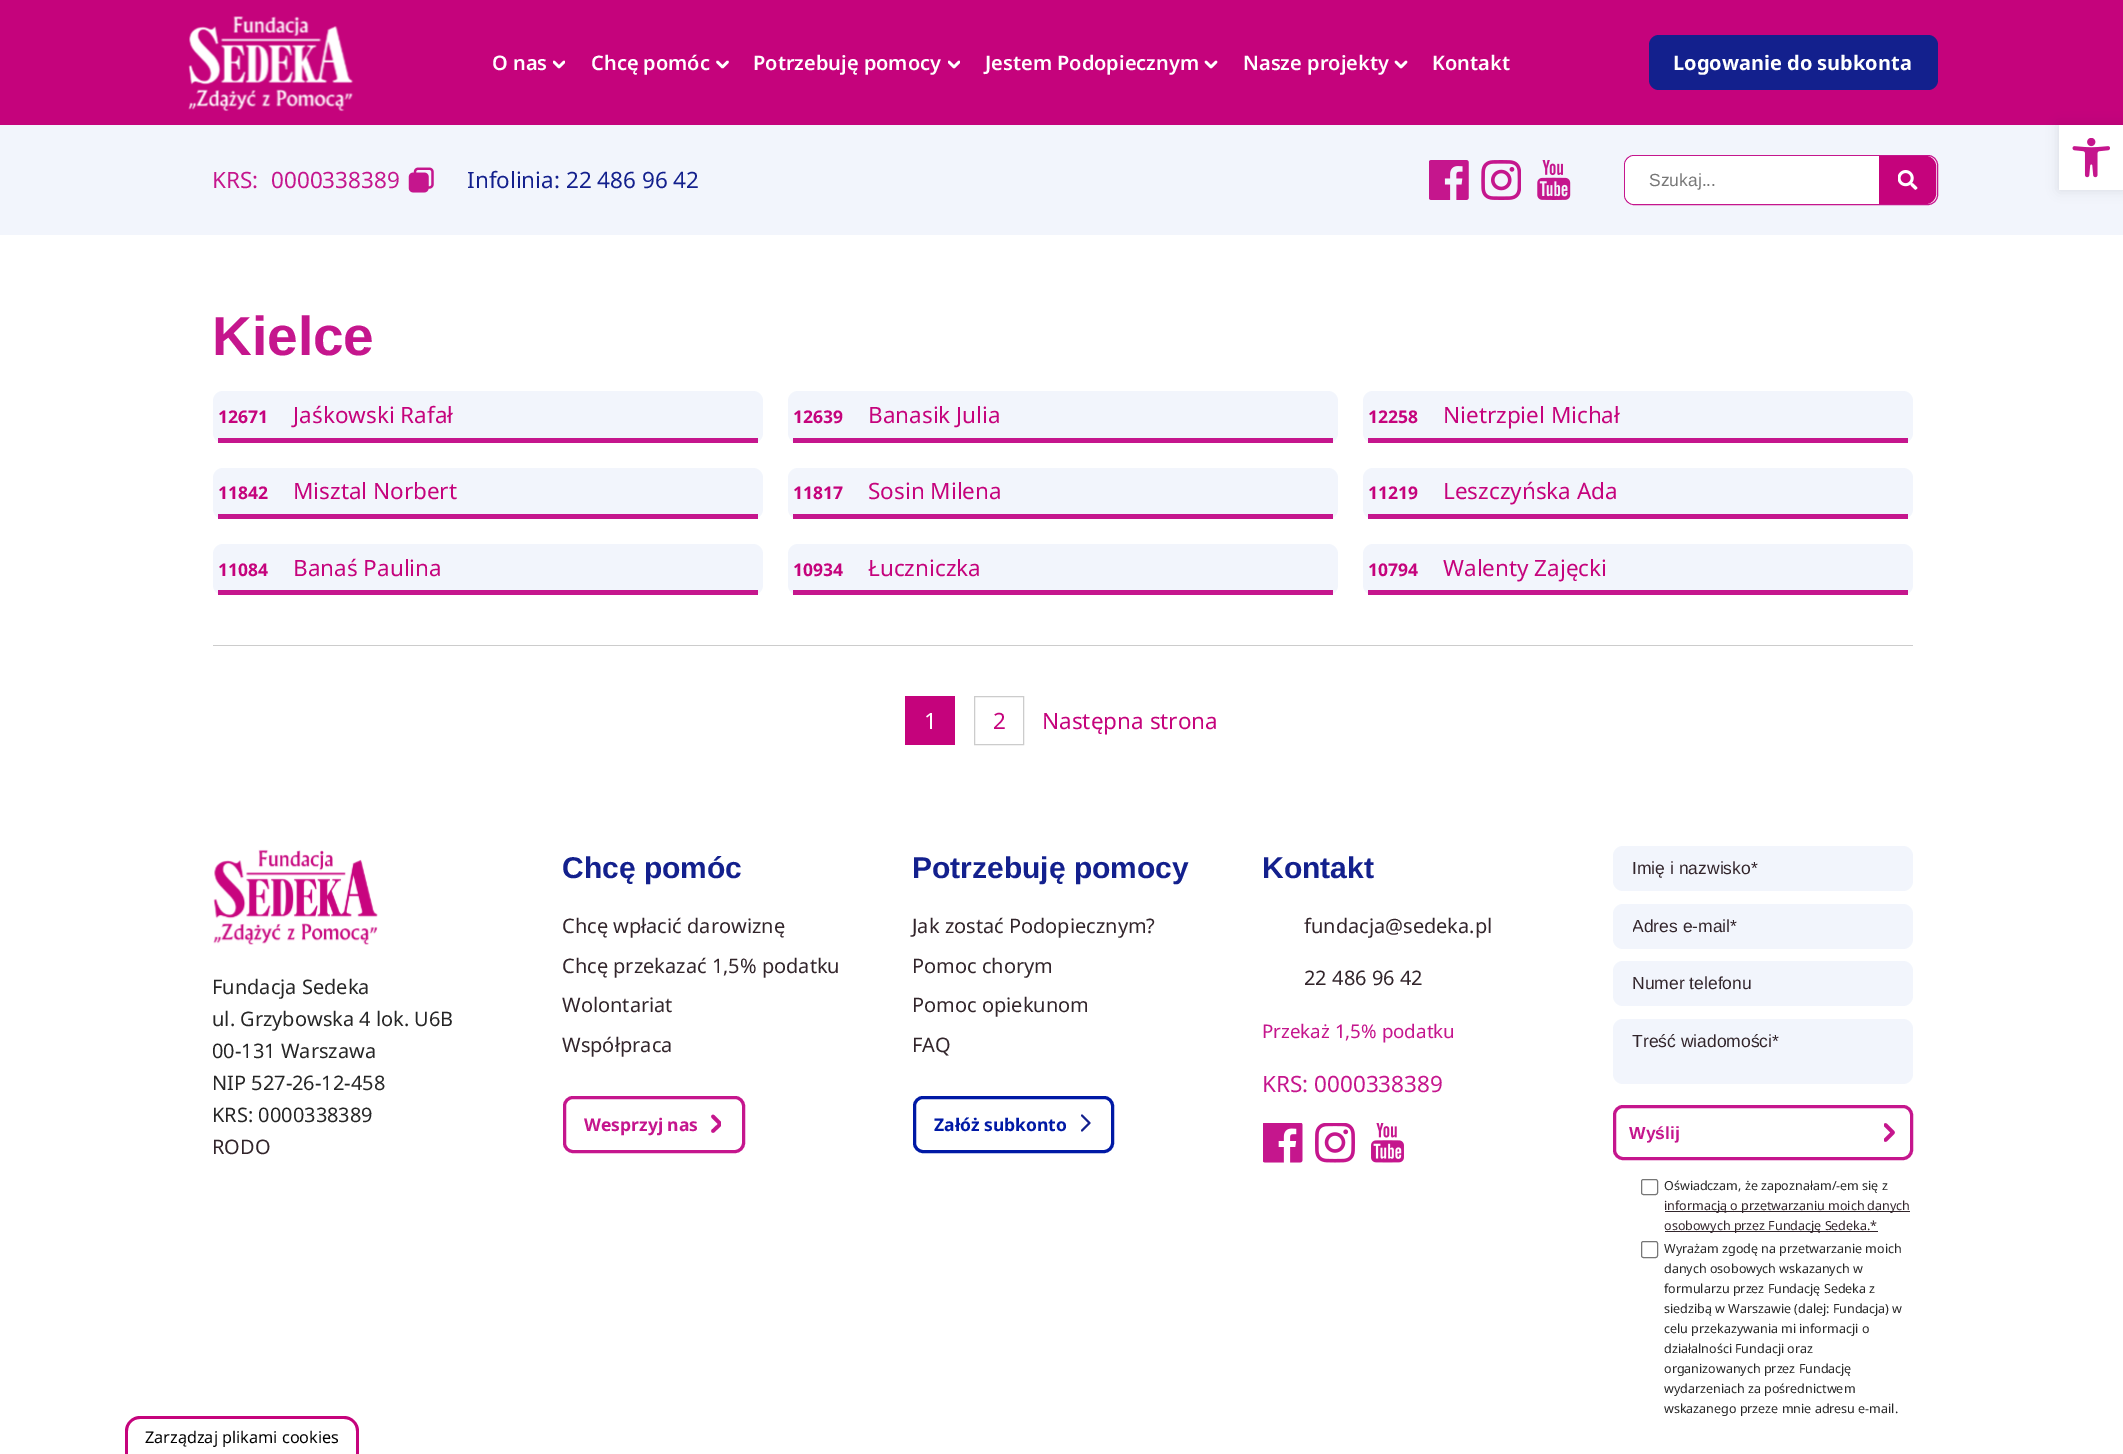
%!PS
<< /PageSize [2123 1454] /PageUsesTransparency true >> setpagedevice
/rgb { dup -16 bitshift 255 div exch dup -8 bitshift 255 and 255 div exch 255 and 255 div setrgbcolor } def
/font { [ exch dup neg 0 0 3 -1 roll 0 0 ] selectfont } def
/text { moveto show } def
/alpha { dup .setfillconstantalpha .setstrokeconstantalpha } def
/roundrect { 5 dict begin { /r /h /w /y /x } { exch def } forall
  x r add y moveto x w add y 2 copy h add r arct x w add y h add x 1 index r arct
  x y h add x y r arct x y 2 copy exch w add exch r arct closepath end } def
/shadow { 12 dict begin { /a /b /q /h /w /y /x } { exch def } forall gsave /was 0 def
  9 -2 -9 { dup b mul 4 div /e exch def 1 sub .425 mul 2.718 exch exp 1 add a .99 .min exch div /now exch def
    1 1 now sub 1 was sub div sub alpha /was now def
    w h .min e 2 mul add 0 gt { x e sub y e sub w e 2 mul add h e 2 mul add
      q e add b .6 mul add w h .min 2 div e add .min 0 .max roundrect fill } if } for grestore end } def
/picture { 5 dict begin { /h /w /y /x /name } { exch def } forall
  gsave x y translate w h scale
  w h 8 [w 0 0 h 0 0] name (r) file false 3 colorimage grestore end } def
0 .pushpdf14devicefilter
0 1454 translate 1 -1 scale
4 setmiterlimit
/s1 { /NotoSans-SemiBold 20 font 16#FFFFFF rgb } def
/s2 { /NotoSans-Bold 20 font 16#FFFFFF rgb } def
/s3 { /NotoSans-Regular 22.5 font 16#C5168D rgb } def
/s4 { /NotoSans-Regular 22.5 font 16#13208D rgb } def
/s5 { /LiberationSans-Regular 17.5 font 16#777777 rgb } def
/s6 { /LiberationSans-Bold 55 font 16#C5168D rgb } def
/s7 { /NotoSans-Bold 17.5 font 16#C5037C rgb } def
/s8 { /NotoSans-Regular 22.5 font 16#C5037C rgb } def
/s9 { /NotoSans-Regular 22.5 font 16#FFFFFF rgb } def
/s10 { /NotoSans-Regular 20 font 16#262626 rgb } def
/s11 { /NotoSans-Regular 20 font 16#32252B rgb } def
/s12 { /LiberationSans-Bold 30 font 16#13208D rgb } def
/s13 { /NotoSans-Bold 17.5 font 16#C5168D rgb } def
/s14 { /NotoSans-Bold 17.5 font 16#0019A5 rgb } def
/s15 { /NotoSans-Regular 18.75 font 16#C5168D rgb } def
/s16 { /LiberationSans-Regular 17.5 font 16#32252B rgb } def
/s17 { /LiberationSans-Bold 17.5 font 16#C5168D rgb } def
/s18 { /NotoSans-Regular 12.5 font 16#262626 rgb } def
/s19 { /NotoSans-Regular 12.5 font 16#32252B rgb } def
/s20 { /NotoSans-Regular 16.25 font 16#000000 rgb } def
16#FFFFFF rgb
0 0 2123 1454 rectfill
16#C5037C rgb
0 0 2123 125 rectfill
(pic1.raw) 188 16 166 96 picture
s1
(O nas) 492 70 text
gsave
553 60 12 9 rectclip
2.5 setlinewidth
1 setlinecap
1 setlinejoin
564 62 moveto 559 67 lineto 554 62 lineto stroke
grestore
(Chcę pomóc) 591 70 text
2.5 setlinewidth
1 setlinecap
1 setlinejoin
727.5 62 moveto 722.5 67 lineto 717.5 62 lineto stroke
(Potrzebuję pomocy) 753 70 text
gsave
948 60 12 9 rectclip
959 62 moveto 954 67 lineto 949 62 lineto stroke
grestore
(Jestem Podopiecznym) 985 70 text
1216 62 moveto 1211 67 lineto 1206 62 lineto stroke
(Nasze projekty) 1243 70 text
1406 62 moveto 1401 67 lineto 1396 62 lineto stroke
(Kontakt) 1432 70 text
16#13208D rgb
1649 35 289 55 10 roundrect fill
s2
(Logowanie do subkonta) 1673 70 text
16#F2F5FC rgb
0 125 2123 110 rectfill
s3
(KRS:) 212 188 text
(0000338389) 271 188 text
(pic2.raw) 408 167 26 26 picture
s4
(Infolinia: 22 486 96 42) 467 188 text
(pic3.raw) 1429 160 40 40 picture
(pic4.raw) 1481 160 40 40 picture
(pic5.raw) 1537 160 34 40 picture
16#FFFFFF rgb
1624.5 155.5 313 49 9.5 roundrect gsave fill grestore
16#C5168D rgb
1 setlinewidth
0 setlinecap
0 setlinejoin
stroke
16#FFFFFF rgb
1635 156 moveto 1879 156 lineto 1879 204 lineto 1635 204 lineto 1629.5 204 1625 199.5 1625 194 curveto 1625 166 lineto 1625 160.5 1629.5 156 1635 156 curveto closepath fill
s5
(Szukaj...) 1649 186 text
16#C5037C rgb
1879.5 156.5 moveto 1926 156.5 lineto 1931 156.5 1935.5 161 1935.5 166 curveto 1935.5 194 lineto 1935.5 199 1931 203.5 1926 203.5 curveto 1879.5 203.5 lineto closepath gsave fill grestore
stroke
(pic6.raw) 1898 170 20 20 picture
16#000000 rgb
2059 125 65 65 0 6 0.1 shadow
16#FFFFFF rgb
2059 125 64 65 rectfill
(pic7.raw) 2072 138 38 40 picture
s6
(Kielce) 212 355 text
16#F2F5FC rgb
213 391 550 52 10 roundrect fill
16#C5168D rgb
218 438 540 5 rectfill
s7
(12671) 218 423 text
s8
(Jaśkowski Rafał) 293 423 text
16#F2F5FC rgb
788 391 550 52 10 roundrect fill
16#C5168D rgb
793 438 540 5 rectfill
s7
(12639) 793 423 text
s8
(Banasik Julia) 868 423 text
16#F2F5FC rgb
1363 391 550 52 10 roundrect fill
16#C5168D rgb
1368 438 540 5 rectfill
s7
(12258) 1368 423 text
s8
(Nietrzpiel Michał) 1443 423 text
16#F2F5FC rgb
213 468 550 51 10 roundrect fill
16#C5168D rgb
218 514 540 5 rectfill
s7
(11842) 218 499 text
s8
(Misztal Norbert) 293 499 text
16#F2F5FC rgb
788 468 550 51 10 roundrect fill
16#C5168D rgb
793 514 540 5 rectfill
s7
(11817) 793 499 text
s8
(Sosin Milena) 868 499 text
16#F2F5FC rgb
1363 468 550 51 10 roundrect fill
16#C5168D rgb
1368 514 540 5 rectfill
s7
(11219) 1368 499 text
s8
(Leszczyńska Ada) 1443 499 text
16#F2F5FC rgb
213 544 550 51 10 roundrect fill
16#C5168D rgb
218 590 540 5 rectfill
s7
(11084) 218 576 text
s8
(Banaś Paulina) 293 576 text
16#F2F5FC rgb
788 544 550 51 10 roundrect fill
16#C5168D rgb
793 590 540 5 rectfill
s7
(10934) 793 576 text
s8
(Łuczniczka) 868 576 text
16#F2F5FC rgb
1363 544 550 51 10 roundrect fill
16#C5168D rgb
1368 590 540 5 rectfill
s7
(10794) 1368 576 text
s8
(Walenty Zajęcki) 1443 576 text
16#CCCCCC rgb
213 645 1700 1 rectfill
16#C5037C rgb
905 696 50 49 rectfill
s9
(1) 924 729 text
16#CCCCCC rgb
974.5 696.5 49 48 rectstroke
s8
(2) 993 729 text
(Następna strona) 1042 729 text
(pic8.raw) 213 849 165 96 picture
s10
(Fundacja Sedeka) 212 994 text
(ul. Grzybowska 4 lok. U6B) 212 1026 text
(00-131 Warszawa) 212 1058 text
(NIP 527-26-12-458) 212 1090 text
(KRS: 0000338389) 212 1122 text
s11
(RODO) 212 1154 text
s12
(Chcę pomóc) 562 878 text
s11
(Chcę wpłacić darowiznę) 562 933 text
(Chcę przekazać 1,5% podatku) 562 973 text
(Wolontariat) 562 1012 text
(Współpraca) 562 1052 text
16#C5168D rgb
3 setlinewidth
564.5 1097.5 179 54 8.5 roundrect stroke
s13
(Wesprzyj nas) 584 1131 text
gsave
711 1114 10 20 rectclip
3.6 setlinewidth
1 setlinecap
1 setlinejoin
713 1116.5 moveto 720.5 1124 lineto 713 1131 lineto stroke
grestore
s12
(Potrzebuję pomocy) 912 878 text
s11
(Jak zostać Podopiecznym?) 912 933 text
(Pomoc chorym) 912 973 text
(Pomoc opiekunom) 912 1012 text
(FAQ) 912 1052 text
16#0019A5 rgb
914.5 1097.5 198 54 8.5 roundrect stroke
s14
(Załóż subkonto) 934 1131 text
16#13208D rgb
1.9 setlinewidth
1 setlinecap
1 setlinejoin
1082 1115.5 moveto 1089.5 1123 lineto 1082 1130.5 lineto stroke
s12
(Kontakt) 1262 878 text
s11
(fundacja@sedeka.pl) 1304 933 text
(22 486 96 42) 1304 985 text
s15
(Przekaż 1,5% podatku) 1262 1038 text
s3
(KRS: 0000338389) 1262 1092 text
(pic9.raw) 1263 1123 40 40 picture
(pic10.raw) 1315 1123 40 40 picture
(pic11.raw) 1371 1123 33 40 picture
16#F2F5FC rgb
1613 846 300 45 10 roundrect fill
s16
(Imię i nazwisko*) 1632 874 text
16#F2F5FC rgb
1613 904 300 45 10 roundrect fill
gsave
1633 916 260 20 rectclip
s16
(Adres e-mail*) 1632 932 text
grestore
1613 961 300 45 10 roundrect fill
s16
(Numer telefonu) 1632 989 text
16#F2F5FC rgb
1613 1019 300 65 10 roundrect fill
s16
(Treść wiadomości*) 1632 1047 text
gsave
1884 1123 11 20 rectclip
16#C5168D rgb
3.6 setlinewidth
1885.5 1125 moveto 1893 1132.5 lineto 1885.5 1140 lineto stroke
grestore
16#C5168D rgb
3 setlinewidth
0 setlinecap
0 setlinejoin
1614.5 1106.5 297 52 8.5 roundrect stroke
s17
(Wyślij) 1629 1139 text
16#767676 rgb
1 setlinewidth
1641.5 1179.5 16 15 2 roundrect stroke
s18
(Oświadczam, że zapoznałam/-em się z) 1664 1190 text
16#32252B rgb
1665 1211 245 1 rectfill
(informacją o przetwarzaniu moich danych) 1664 1210 text
1665 1231 213 1 rectfill
(osobowych przez Fundację Sedeka.*) 1664 1230 text
16#767676 rgb
1641.5 1241.5 16 16 2 roundrect stroke
s18
(Wyrażam zgodę na przetwarzanie moich) 1664 1253 text
(danych osobowych wskazanych w) 1664 1273 text
(formularzu przez Fundację Sedeka z) 1664 1293 text
(siedzibą w Warszawie \(dalej: Fundacja\) w) 1664 1313 text
(celu przekazywania mi informacji o) 1664 1333 text
(działalności Fundacji oraz) 1664 1353 text
(organizowanych przez Fundację) 1664 1373 text
(wydarzeniach za pośrednictwem) 1664 1393 text
(wskazanego przeze mnie adresu e-mail.) 1664 1413 text
16#C5037C rgb
140 1416 moveto 344 1416 lineto 352 1416 359 1423 359 1431 curveto 359 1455 lineto 125 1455 lineto 125 1431 lineto 125 1423 132 1416 140 1416 curveto closepath 140 1419 moveto 344 1419 lineto 351 1419 356 1424 356 1431 curveto 356 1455 lineto 128 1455 lineto 128 1431 lineto 128 1424 133 1419 140 1419 curveto closepath eofill
s20
(Zarządzaj plikami cookies) 145 1443 text
.poppdf14devicefilter showpage
